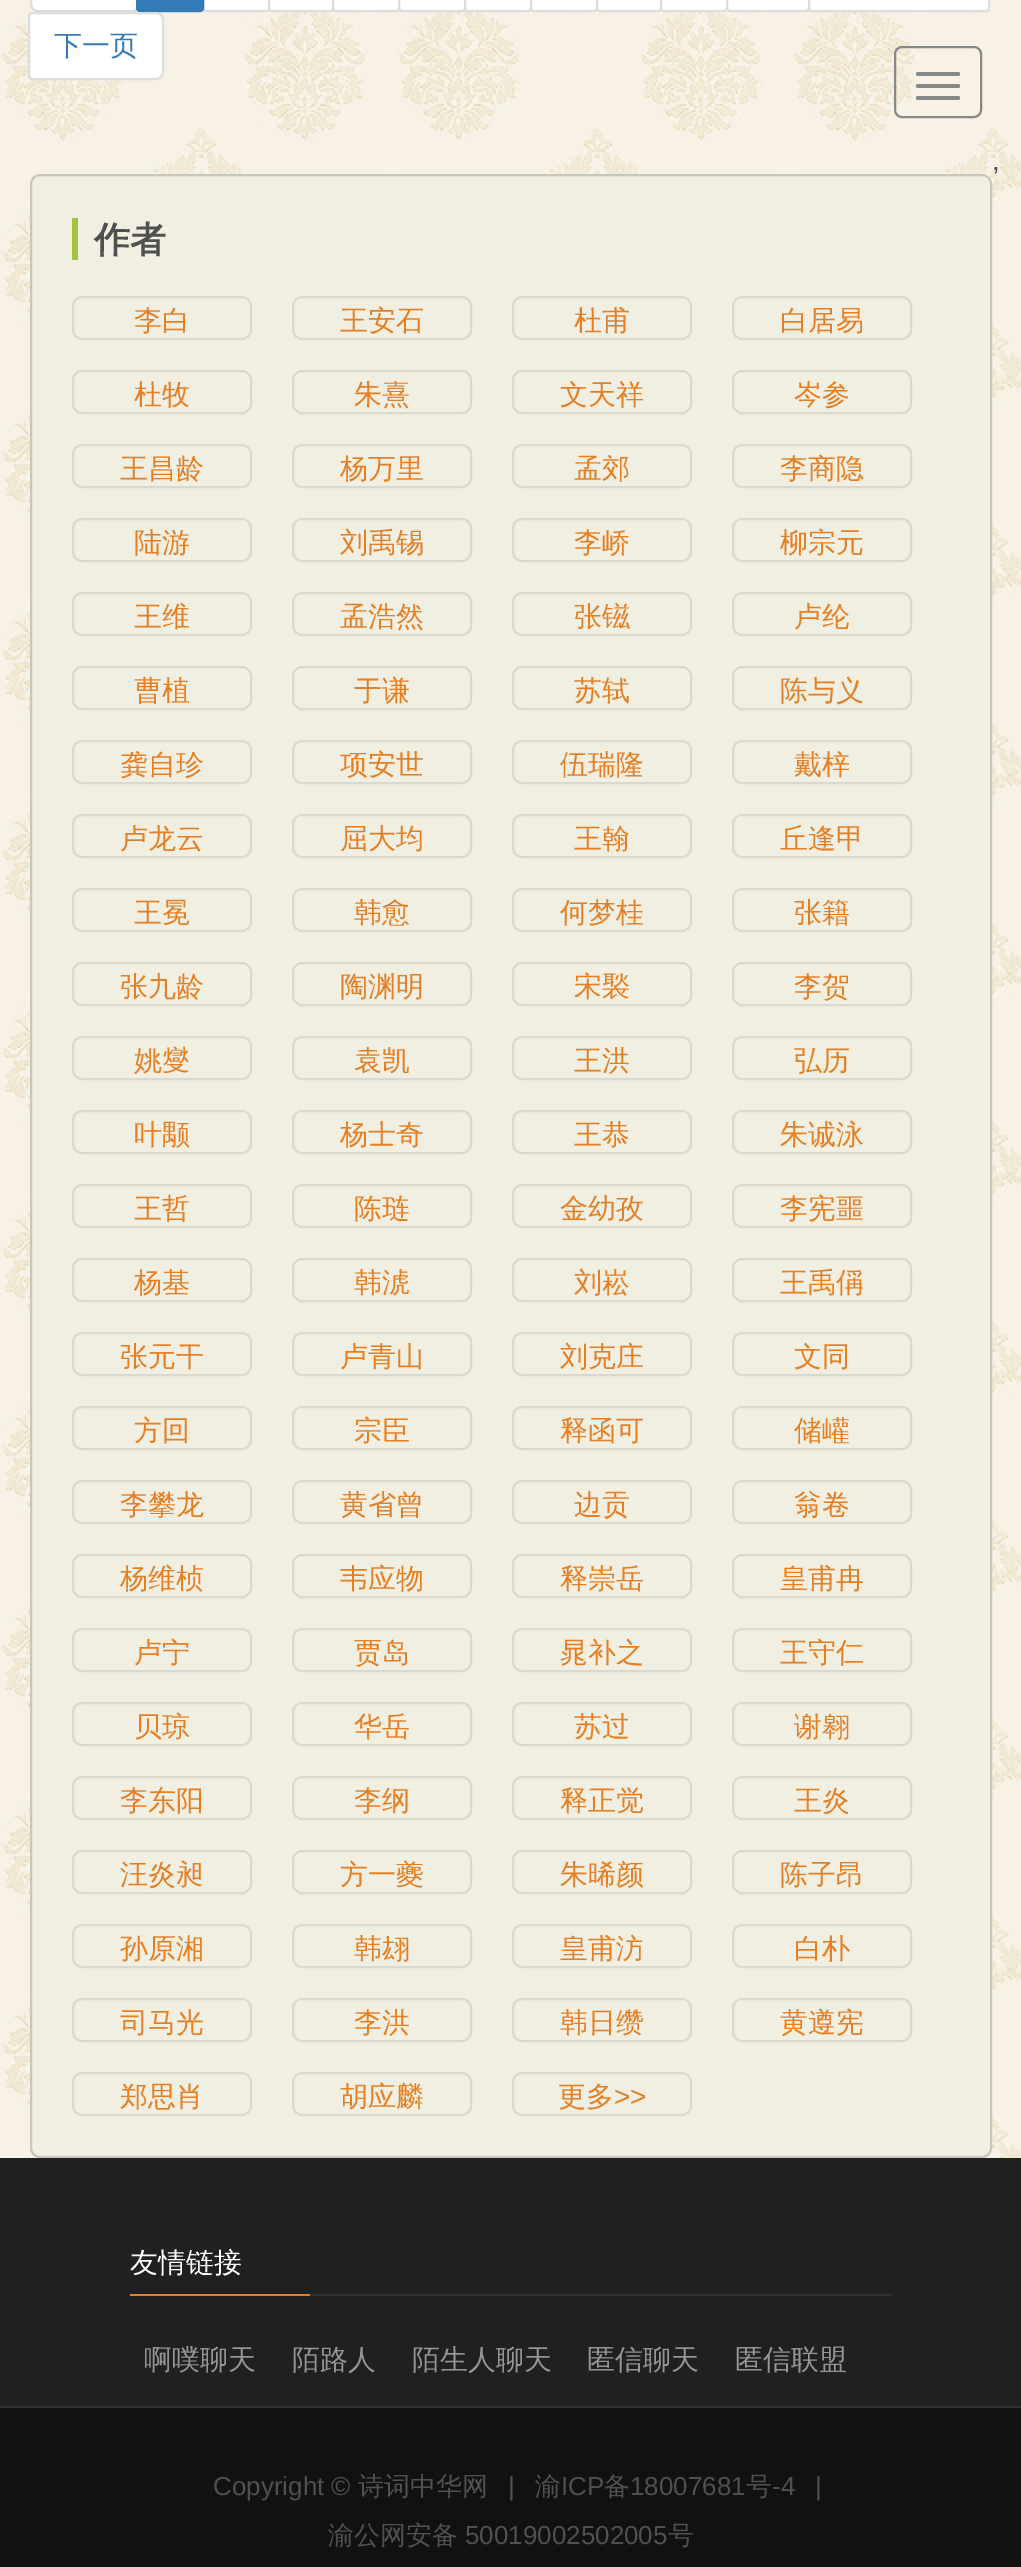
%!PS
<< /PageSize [1021 2567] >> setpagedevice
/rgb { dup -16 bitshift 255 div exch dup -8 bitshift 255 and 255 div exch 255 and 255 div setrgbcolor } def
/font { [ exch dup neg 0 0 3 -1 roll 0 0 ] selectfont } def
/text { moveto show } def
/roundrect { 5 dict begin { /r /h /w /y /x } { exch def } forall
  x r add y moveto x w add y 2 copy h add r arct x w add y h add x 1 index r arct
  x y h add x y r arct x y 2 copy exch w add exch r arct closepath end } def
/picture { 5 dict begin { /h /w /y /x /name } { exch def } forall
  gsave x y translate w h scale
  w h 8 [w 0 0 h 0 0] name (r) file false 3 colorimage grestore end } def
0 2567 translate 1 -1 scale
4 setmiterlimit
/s1 { /WenQuanYiZenHei-Medium 28 font 16#337AB7 rgb } def
/s2 { /LiberationSans-Regular 28 font 16#505050 rgb } def
/s3 { /WenQuanYiZenHei-Bold 36 font 16#505050 rgb } def
/s4 { /WenQuanYiZenHei-Medium 28 font 16#E67E22 rgb } def
/s5 { /LiberationSans-Regular 28 font 16#E67E22 rgb } def
/s6 { /WenQuanYiZenHei-Medium 28 font 16#FFFFFF rgb } def
/s7 { /WenQuanYiZenHei-Medium 28 font 16#959595 rgb } def
/s8 { /LiberationSans-Regular 26 font 16#505050 rgb } def
/s9 { /WenQuanYiZenHei-Medium 26 font 16#505050 rgb } def
16#FFFFFF rgb
0 0 1021 2567 rectfill
(pic1.raw) 0 0 1021 2158 picture
38 -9 moveto 134 -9 lineto 135.5 -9 137 -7.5 137 -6 curveto 137 8 lineto 137 9.5 135.5 11 134 11 curveto 38 11 lineto 34 11 31 8 31 4 curveto 31 -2 lineto 31 -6 34 -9 38 -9 curveto closepath gsave fill grestore
16#DDDDDD rgb
2 setlinewidth
stroke
16#FFFFFF rgb
203 -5 66 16 3 roundrect gsave fill grestore
16#DDDDDD rgb
stroke
16#337AB7 rgb
137 -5 66 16 3 roundrect gsave fill grestore
stroke
16#FFFFFF rgb
269 -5 64 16 3 roundrect gsave fill grestore
16#DDDDDD rgb
stroke
16#FFFFFF rgb
333 -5 66 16 3 roundrect gsave fill grestore
16#DDDDDD rgb
stroke
16#FFFFFF rgb
399 -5 66 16 3 roundrect gsave fill grestore
16#DDDDDD rgb
stroke
16#FFFFFF rgb
465 -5 66 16 3 roundrect gsave fill grestore
16#DDDDDD rgb
stroke
16#FFFFFF rgb
531 -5 66 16 3 roundrect gsave fill grestore
16#DDDDDD rgb
stroke
16#FFFFFF rgb
597 -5 64 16 3 roundrect gsave fill grestore
16#DDDDDD rgb
stroke
16#FFFFFF rgb
661 -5 66 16 3 roundrect gsave fill grestore
16#DDDDDD rgb
stroke
16#FFFFFF rgb
727 -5 82 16 3 roundrect gsave fill grestore
16#DDDDDD rgb
stroke
16#FFFFFF rgb
809 -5 180 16 3 roundrect gsave fill grestore
16#DDDDDD rgb
stroke
16#FFFFFF rgb
32 13 moveto 156 13 lineto 160 13 163 16 163 20 curveto 163 72 lineto 163 76 160 79 156 79 curveto 32 79 lineto 30.5 79 29 77.5 29 76 curveto 29 16 lineto 29 14.5 30.5 13 32 13 curveto closepath gsave fill grestore
16#DDDDDD rgb
stroke
s1
(下一页) 54 55 text
s2
(,) 992 170 text
16#F0EFE2 rgb
31 175 960 1982 9 roundrect gsave fill grestore
16#C8C7BC rgb
stroke
16#A2C241 rgb
72 218 6 42 rectfill
s3
(作者) 94 252 text
16#DAD9D1 rgb
73 297 178 42 9 roundrect stroke
s4
(李白) 134 330 text
16#DAD9D1 rgb
293 297 178 42 9 roundrect stroke
s4
(王安石) 340 330 text
16#DAD9D1 rgb
513 297 178 42 9 roundrect stroke
s4
(杜甫) 574 330 text
16#DAD9D1 rgb
733 297 178 42 9 roundrect stroke
s4
(白居易) 780 330 text
16#DAD9D1 rgb
73 371 178 42 9 roundrect stroke
s4
(杜牧) 134 404 text
16#DAD9D1 rgb
293 371 178 42 9 roundrect stroke
s4
(朱熹) 354 404 text
16#DAD9D1 rgb
513 371 178 42 9 roundrect stroke
s4
(文天祥) 560 404 text
16#DAD9D1 rgb
733 371 178 42 9 roundrect stroke
s4
(岑参) 794 404 text
16#DAD9D1 rgb
73 445 178 42 9 roundrect stroke
s4
(王昌龄) 120 478 text
16#DAD9D1 rgb
293 445 178 42 9 roundrect stroke
s4
(杨万里) 340 478 text
16#DAD9D1 rgb
513 445 178 42 9 roundrect stroke
s4
(孟郊) 574 478 text
16#DAD9D1 rgb
733 445 178 42 9 roundrect stroke
s4
(李商隐) 780 478 text
16#DAD9D1 rgb
73 519 178 42 9 roundrect stroke
s4
(陆游) 134 552 text
16#DAD9D1 rgb
293 519 178 42 9 roundrect stroke
s4
(刘禹锡) 340 552 text
16#DAD9D1 rgb
513 519 178 42 9 roundrect stroke
s4
(李峤) 574 552 text
16#DAD9D1 rgb
733 519 178 42 9 roundrect stroke
s4
(柳宗元) 780 552 text
16#DAD9D1 rgb
73 593 178 42 9 roundrect stroke
s4
(王维) 134 626 text
16#DAD9D1 rgb
293 593 178 42 9 roundrect stroke
s4
(孟浩然) 340 626 text
16#DAD9D1 rgb
513 593 178 42 9 roundrect stroke
s4
(张镃) 574 626 text
16#DAD9D1 rgb
733 593 178 42 9 roundrect stroke
s4
(卢纶) 794 626 text
16#DAD9D1 rgb
73 667 178 42 9 roundrect stroke
s4
(曹植) 134 700 text
16#DAD9D1 rgb
293 667 178 42 9 roundrect stroke
s4
(于谦) 354 700 text
16#DAD9D1 rgb
513 667 178 42 9 roundrect stroke
s4
(苏轼) 574 700 text
16#DAD9D1 rgb
733 667 178 42 9 roundrect stroke
s4
(陈与义) 780 700 text
16#DAD9D1 rgb
73 741 178 42 9 roundrect stroke
s4
(龚自珍) 120 774 text
16#DAD9D1 rgb
293 741 178 42 9 roundrect stroke
s4
(项安世) 340 774 text
16#DAD9D1 rgb
513 741 178 42 9 roundrect stroke
s4
(伍瑞隆) 560 774 text
16#DAD9D1 rgb
733 741 178 42 9 roundrect stroke
s4
(戴梓) 794 774 text
16#DAD9D1 rgb
73 815 178 42 9 roundrect stroke
s4
(卢龙云) 120 848 text
16#DAD9D1 rgb
293 815 178 42 9 roundrect stroke
s4
(屈大均) 340 848 text
16#DAD9D1 rgb
513 815 178 42 9 roundrect stroke
s4
(王翰) 574 848 text
16#DAD9D1 rgb
733 815 178 42 9 roundrect stroke
s4
(丘逢甲) 780 848 text
16#DAD9D1 rgb
73 889 178 42 9 roundrect stroke
s4
(王冕) 134 922 text
16#DAD9D1 rgb
293 889 178 42 9 roundrect stroke
s4
(韩愈) 354 922 text
16#DAD9D1 rgb
513 889 178 42 9 roundrect stroke
s4
(何梦桂) 560 922 text
16#DAD9D1 rgb
733 889 178 42 9 roundrect stroke
s4
(张籍) 794 922 text
16#DAD9D1 rgb
73 963 178 42 9 roundrect stroke
s4
(张九龄) 120 996 text
16#DAD9D1 rgb
293 963 178 42 9 roundrect stroke
s4
(陶渊明) 340 996 text
16#DAD9D1 rgb
513 963 178 42 9 roundrect stroke
s4
(宋褧) 574 996 text
16#DAD9D1 rgb
733 963 178 42 9 roundrect stroke
s4
(李贺) 794 996 text
16#DAD9D1 rgb
73 1037 178 42 9 roundrect stroke
s4
(姚燮) 134 1070 text
16#DAD9D1 rgb
293 1037 178 42 9 roundrect stroke
s4
(袁凯) 354 1070 text
16#DAD9D1 rgb
513 1037 178 42 9 roundrect stroke
s4
(王洪) 574 1070 text
16#DAD9D1 rgb
733 1037 178 42 9 roundrect stroke
s4
(弘历) 794 1070 text
16#DAD9D1 rgb
73 1111 178 42 9 roundrect stroke
s4
(叶颙) 134 1144 text
16#DAD9D1 rgb
293 1111 178 42 9 roundrect stroke
s4
(杨士奇) 340 1144 text
16#DAD9D1 rgb
513 1111 178 42 9 roundrect stroke
s4
(王恭) 574 1144 text
16#DAD9D1 rgb
733 1111 178 42 9 roundrect stroke
s4
(朱诚泳) 780 1144 text
16#DAD9D1 rgb
73 1185 178 42 9 roundrect stroke
s4
(王哲) 134 1218 text
16#DAD9D1 rgb
293 1185 178 42 9 roundrect stroke
s4
(陈琏) 354 1218 text
16#DAD9D1 rgb
513 1185 178 42 9 roundrect stroke
s4
(金幼孜) 560 1218 text
16#DAD9D1 rgb
733 1185 178 42 9 roundrect stroke
s4
(李宪噩) 780 1218 text
16#DAD9D1 rgb
73 1259 178 42 9 roundrect stroke
s4
(杨基) 134 1292 text
16#DAD9D1 rgb
293 1259 178 42 9 roundrect stroke
s4
(韩淲) 354 1292 text
16#DAD9D1 rgb
513 1259 178 42 9 roundrect stroke
s4
(刘崧) 574 1292 text
16#DAD9D1 rgb
733 1259 178 42 9 roundrect stroke
s4
(王禹偁) 780 1292 text
16#DAD9D1 rgb
73 1333 178 42 9 roundrect stroke
s4
(张元干) 120 1366 text
16#DAD9D1 rgb
293 1333 178 42 9 roundrect stroke
s4
(卢青山) 340 1366 text
16#DAD9D1 rgb
513 1333 178 42 9 roundrect stroke
s4
(刘克庄) 560 1366 text
16#DAD9D1 rgb
733 1333 178 42 9 roundrect stroke
s4
(文同) 794 1366 text
16#DAD9D1 rgb
73 1407 178 42 9 roundrect stroke
s4
(方回) 134 1440 text
16#DAD9D1 rgb
293 1407 178 42 9 roundrect stroke
s4
(宗臣) 354 1440 text
16#DAD9D1 rgb
513 1407 178 42 9 roundrect stroke
s4
(释函可) 560 1440 text
16#DAD9D1 rgb
733 1407 178 42 9 roundrect stroke
s4
(储巏) 794 1440 text
16#DAD9D1 rgb
73 1481 178 42 9 roundrect stroke
s4
(李攀龙) 120 1514 text
16#DAD9D1 rgb
293 1481 178 42 9 roundrect stroke
s4
(黄省曾) 340 1514 text
16#DAD9D1 rgb
513 1481 178 42 9 roundrect stroke
s4
(边贡) 574 1514 text
16#DAD9D1 rgb
733 1481 178 42 9 roundrect stroke
s4
(翁卷) 794 1514 text
16#DAD9D1 rgb
73 1555 178 42 9 roundrect stroke
s4
(杨维桢) 120 1588 text
16#DAD9D1 rgb
293 1555 178 42 9 roundrect stroke
s4
(韦应物) 340 1588 text
16#DAD9D1 rgb
513 1555 178 42 9 roundrect stroke
s4
(释崇岳) 560 1588 text
16#DAD9D1 rgb
733 1555 178 42 9 roundrect stroke
s4
(皇甫冉) 780 1588 text
16#DAD9D1 rgb
73 1629 178 42 9 roundrect stroke
s4
(卢宁) 134 1662 text
16#DAD9D1 rgb
293 1629 178 42 9 roundrect stroke
s4
(贾岛) 354 1662 text
16#DAD9D1 rgb
513 1629 178 42 9 roundrect stroke
s4
(晁补之) 560 1662 text
16#DAD9D1 rgb
733 1629 178 42 9 roundrect stroke
s4
(王守仁) 780 1662 text
16#DAD9D1 rgb
73 1703 178 42 9 roundrect stroke
s4
(贝琼) 134 1736 text
16#DAD9D1 rgb
293 1703 178 42 9 roundrect stroke
s4
(华岳) 354 1736 text
16#DAD9D1 rgb
513 1703 178 42 9 roundrect stroke
s4
(苏过) 574 1736 text
16#DAD9D1 rgb
733 1703 178 42 9 roundrect stroke
s4
(谢翱) 794 1736 text
16#DAD9D1 rgb
73 1777 178 42 9 roundrect stroke
s4
(李东阳) 120 1810 text
16#DAD9D1 rgb
293 1777 178 42 9 roundrect stroke
s4
(李纲) 354 1810 text
16#DAD9D1 rgb
513 1777 178 42 9 roundrect stroke
s4
(释正觉) 560 1810 text
16#DAD9D1 rgb
733 1777 178 42 9 roundrect stroke
s4
(王炎) 794 1810 text
16#DAD9D1 rgb
73 1851 178 42 9 roundrect stroke
s4
(汪炎昶) 120 1884 text
16#DAD9D1 rgb
293 1851 178 42 9 roundrect stroke
s4
(方一夔) 340 1884 text
16#DAD9D1 rgb
513 1851 178 42 9 roundrect stroke
s4
(朱晞颜) 560 1884 text
16#DAD9D1 rgb
733 1851 178 42 9 roundrect stroke
s4
(陈子昂) 780 1884 text
16#DAD9D1 rgb
73 1925 178 42 9 roundrect stroke
s4
(孙原湘) 120 1958 text
16#DAD9D1 rgb
293 1925 178 42 9 roundrect stroke
s4
(韩翃) 354 1958 text
16#DAD9D1 rgb
513 1925 178 42 9 roundrect stroke
s4
(皇甫汸) 560 1958 text
16#DAD9D1 rgb
733 1925 178 42 9 roundrect stroke
s4
(白朴) 794 1958 text
16#DAD9D1 rgb
73 1999 178 42 9 roundrect stroke
s4
(司马光) 120 2032 text
16#DAD9D1 rgb
293 1999 178 42 9 roundrect stroke
s4
(李洪) 354 2032 text
16#DAD9D1 rgb
513 1999 178 42 9 roundrect stroke
s4
(韩日缵) 560 2032 text
16#DAD9D1 rgb
733 1999 178 42 9 roundrect stroke
s4
(黄遵宪) 780 2032 text
16#DAD9D1 rgb
73 2073 178 42 9 roundrect stroke
s4
(郑思肖) 120 2106 text
16#DAD9D1 rgb
293 2073 178 42 9 roundrect stroke
s4
(胡应麟) 340 2106 text
16#DAD9D1 rgb
513 2073 178 42 9 roundrect stroke
s4
(更多) 558 2106 text
s5
(>>) 614 2106 text
16#888888 rgb
895 47 86 70 7 roundrect stroke
916 72 44 4 2 roundrect fill
916 84 44 4 2 roundrect fill
916 96 44 4 2 roundrect fill
16#202020 rgb
0 2158 1021 248 rectfill
16#303030 rgb
310 2294 582 2 rectfill
s6
(友情链接) 130 2272 text
16#E67E22 rgb
130 2294 180 2 rectfill
s7
(啊噗聊天) 144 2369 text
(陌路人) 292 2369 text
(陌生人聊天) 412 2369 text
(匿信聊天) 587 2369 text
(匿信联盟) 735 2369 text
16#111111 rgb
0 2408 1021 159 rectfill
16#303030 rgb
0 2406 1021 2 rectfill
s8
(Copyright ©) 213 2495 text
s9
(诗词中华网) 358 2495 text
s8
(|) 508 2495 text
s9
(渝) 535 2495 text
s8
(ICP) 561 2495 text
s9
(备) 604 2495 text
s8
(18007681) 630 2495 text
s9
(号) 746 2495 text
s8
(-4) 772 2495 text
(|) 815 2495 text
s9
(渝公网安备) 328 2544 text
s8
(50019002502005) 465 2544 text
s9
(号) 668 2544 text
showpage
